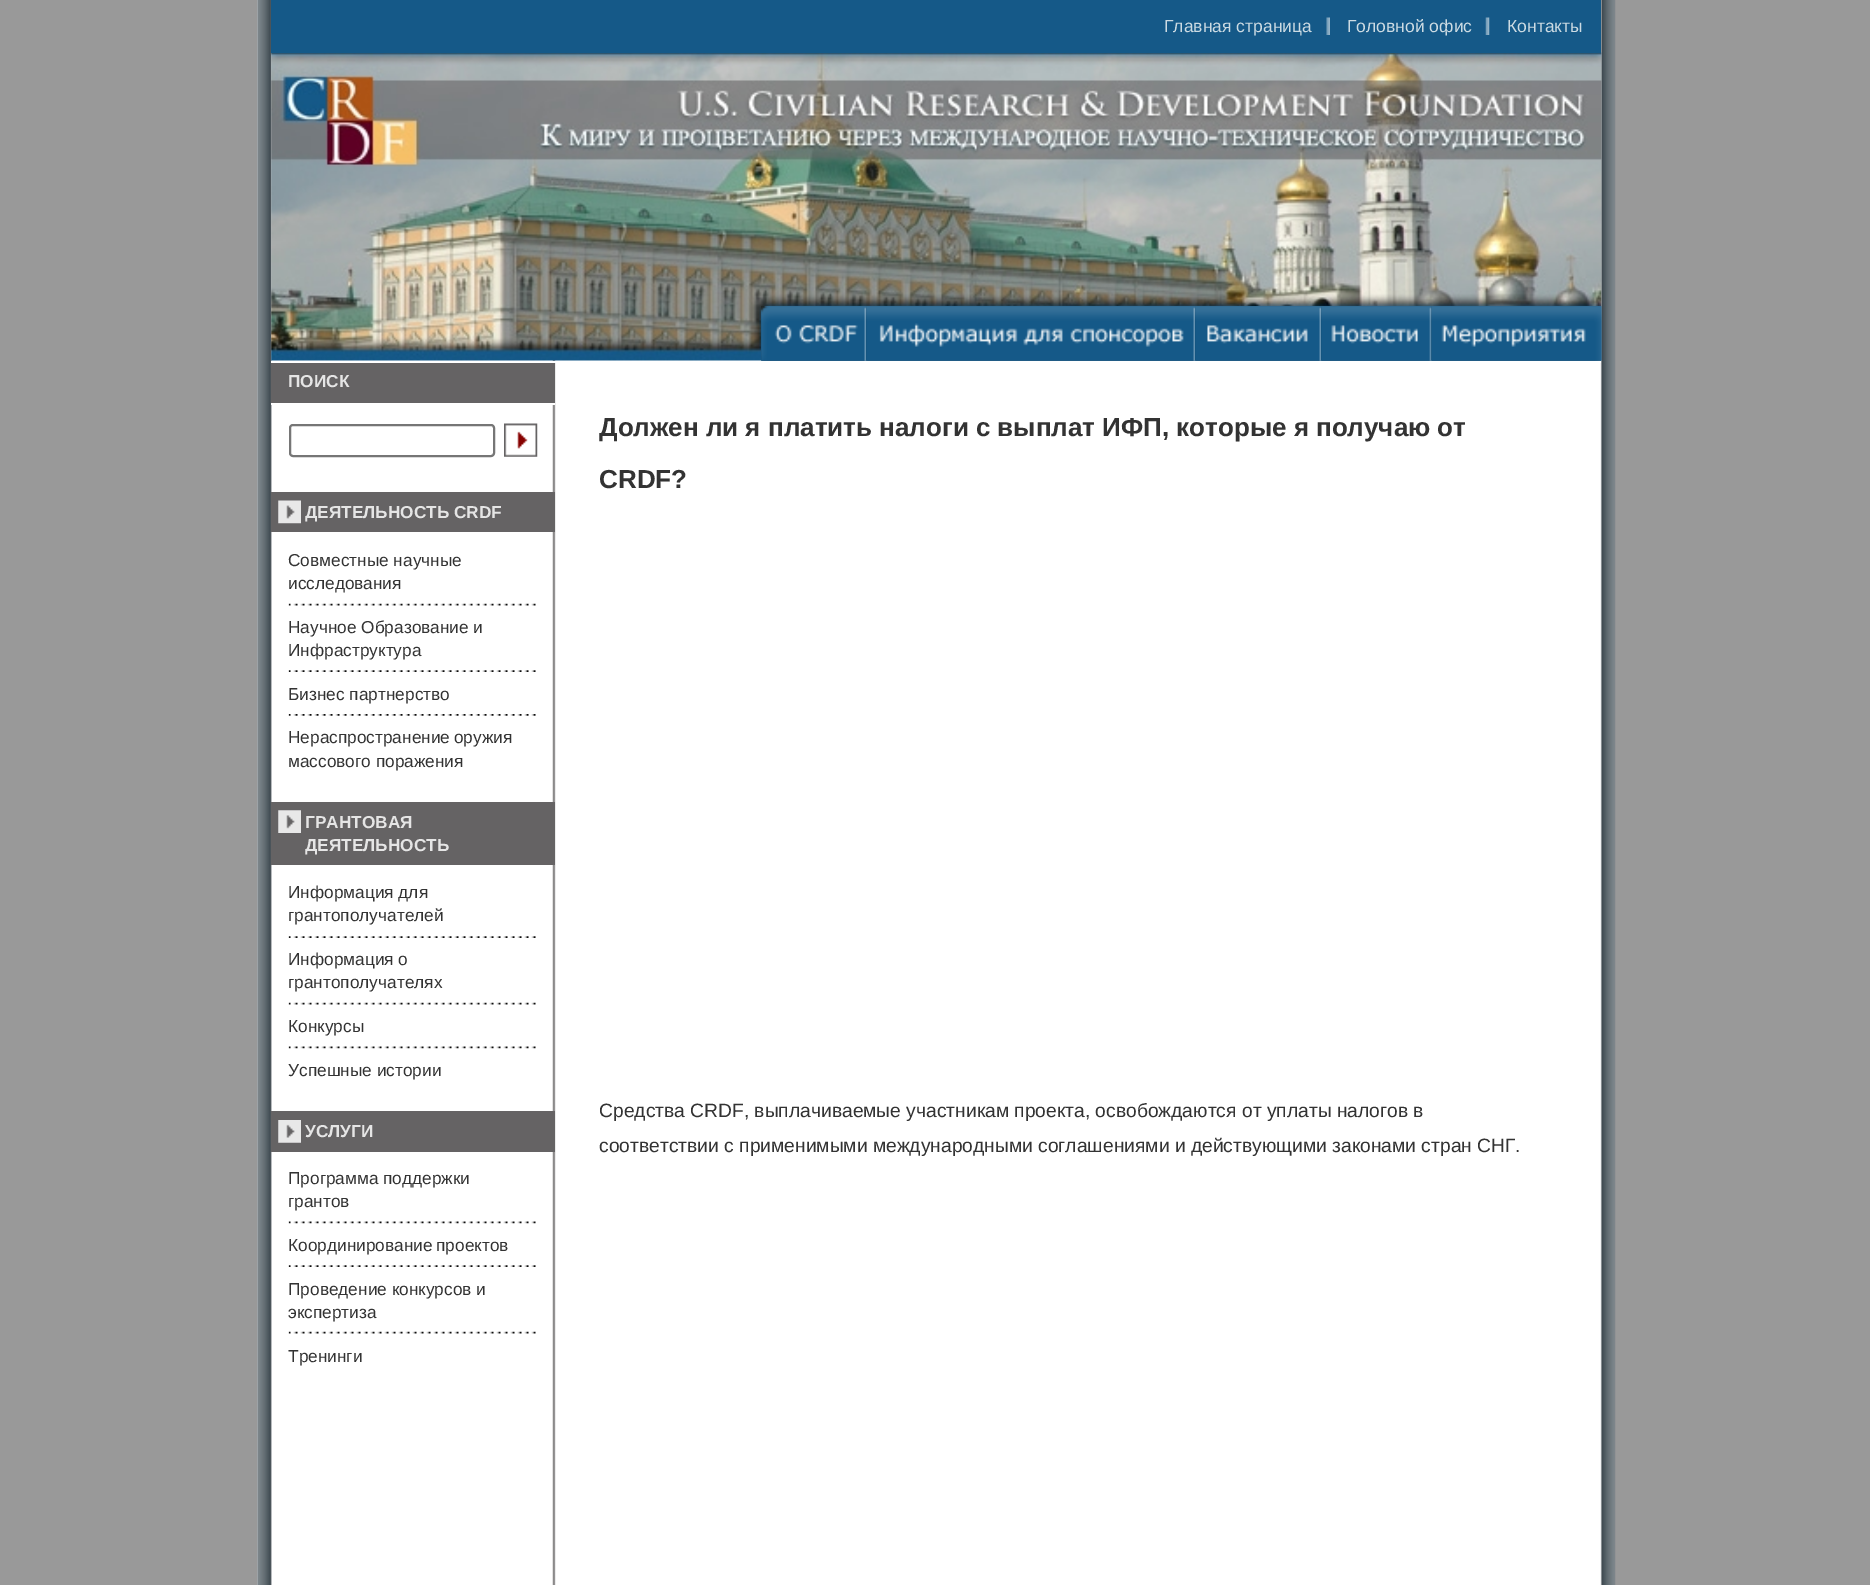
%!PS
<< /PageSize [1870 1585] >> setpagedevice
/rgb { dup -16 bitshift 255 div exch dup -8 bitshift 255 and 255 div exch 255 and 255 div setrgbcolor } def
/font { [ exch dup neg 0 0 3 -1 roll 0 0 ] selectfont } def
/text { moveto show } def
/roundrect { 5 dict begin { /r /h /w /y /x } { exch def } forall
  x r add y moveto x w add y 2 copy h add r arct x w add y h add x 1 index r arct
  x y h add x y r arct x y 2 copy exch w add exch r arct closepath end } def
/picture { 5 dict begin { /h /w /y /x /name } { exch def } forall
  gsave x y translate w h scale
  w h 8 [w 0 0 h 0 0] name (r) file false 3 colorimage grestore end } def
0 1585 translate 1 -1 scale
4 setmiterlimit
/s1 { /LiberationSans-Regular 17.5 font 16#CCDBE3 rgb } def
/s2 { /LiberationSans-Bold 17.25 font 16#E5E5E5 rgb } def
/s3 { /LiberationSans-Regular 17.25 font 16#333333 rgb } def
/s4 { /LiberationSans-Bold 26 font 16#333333 rgb } def
/s5 { /LiberationSans-Regular 19.25 font 16#333333 rgb } def
16#999999 rgb
0 0 1870 1585 rectfill
(pic1.raw) 257 0 1359 1585 picture
(pic2.raw) 271 52 1331 309 picture
16#FFFFFF rgb
271 361 1330 2 rectfill
16#155988 rgb
271 0 1330 53 rectfill
(pic3.raw) 1326 17 4 18 picture
s1
(Главная страница) 1164 32 text
(pic4.raw) 1485 17 5 18 picture
(Головной офис) 1347 32 text
(Контакты) 1507 32 text
(pic5.raw) 761 306 841 55 picture
(pic6.raw) 761 306 106 55 picture
(pic7.raw) 761 306 106 55 picture
(pic8.raw) 866 306 330 55 picture
(pic9.raw) 866 306 330 55 picture
(pic10.raw) 1195 306 127 55 picture
(pic11.raw) 1195 306 127 55 picture
(pic12.raw) 1321 306 111 55 picture
(pic13.raw) 1321 306 111 55 picture
(pic14.raw) 1431 306 171 55 picture
(pic15.raw) 1431 306 171 55 picture
16#656364 rgb
271 363 284 40 rectfill
16#FFFFFF rgb
271 403 284 2 rectfill
s2
(ПОИСК) 288 387 text
16#767676 rgb
2 setlinewidth
290 425 204 31 3 roundrect stroke
(pic16.raw) 504 423 34 34 picture
16#656364 rgb
271 492 284 40 rectfill
(pic17.raw) 278 500 23 24 picture
s2
(ДЕЯТЕЛЬНОСТЬ CRDF) 305 518 text
s3
(Совместные научные) 288 566 text
(исследования) 288 589 text
(pic18.raw) 288 603 248 3 picture
(Научное Образование и) 288 633 text
(Инфраструктура) 288 656 text
(pic19.raw) 288 670 248 2 picture
(Бизнес партнерство) 288 700 text
(pic20.raw) 288 714 248 2 picture
288 743 moveto -1 0 32 (Нераспространение оружия) widthshow
(массового поражения) 288 767 text
16#656364 rgb
271 802 284 63 rectfill
(pic21.raw) 278 810 23 23 picture
s2
(ГРАНТОВАЯ) 305 828 text
(ДЕЯТЕЛЬНОСТЬ) 305 851 text
s3
(Информация для) 288 898 text
(грантополучателей) 288 921 text
(pic19.raw) 288 936 248 2 picture
(Информация о) 288 965 text
(грантополучателях) 288 988 text
(pic18.raw) 288 1002 248 3 picture
(Конкурсы) 288 1032 text
(pic22.raw) 288 1046 248 3 picture
(Успешные истории) 288 1076 text
16#656364 rgb
271 1111 284 41 rectfill
(pic23.raw) 278 1120 23 23 picture
s2
(УСЛУГИ) 305 1137 text
s3
(Программа поддержки) 288 1184 text
(грантов) 288 1207 text
(pic22.raw) 288 1221 248 3 picture
288 1251 moveto -1 0 32 (Координирование проектов) widthshow
(pic19.raw) 288 1265 248 2 picture
(Проведение конкурсов и) 288 1295 text
(экспертиза) 288 1318 text
(pic18.raw) 288 1331 248 3 picture
(Тренинги) 288 1362 text
s4
(Должен ли я платить налоги с выплат ИФП, которые я получаю от) 599 436 text
(CRDF?) 599 488 text
s5
(Средства CRDF, выплачиваемые участникам проекта, освобождаются от уплаты налогов в) 599 1117 text
(соответствии с применимыми международными соглашениями и действующими законами стран СНГ.) 599 1152 text
showpage
